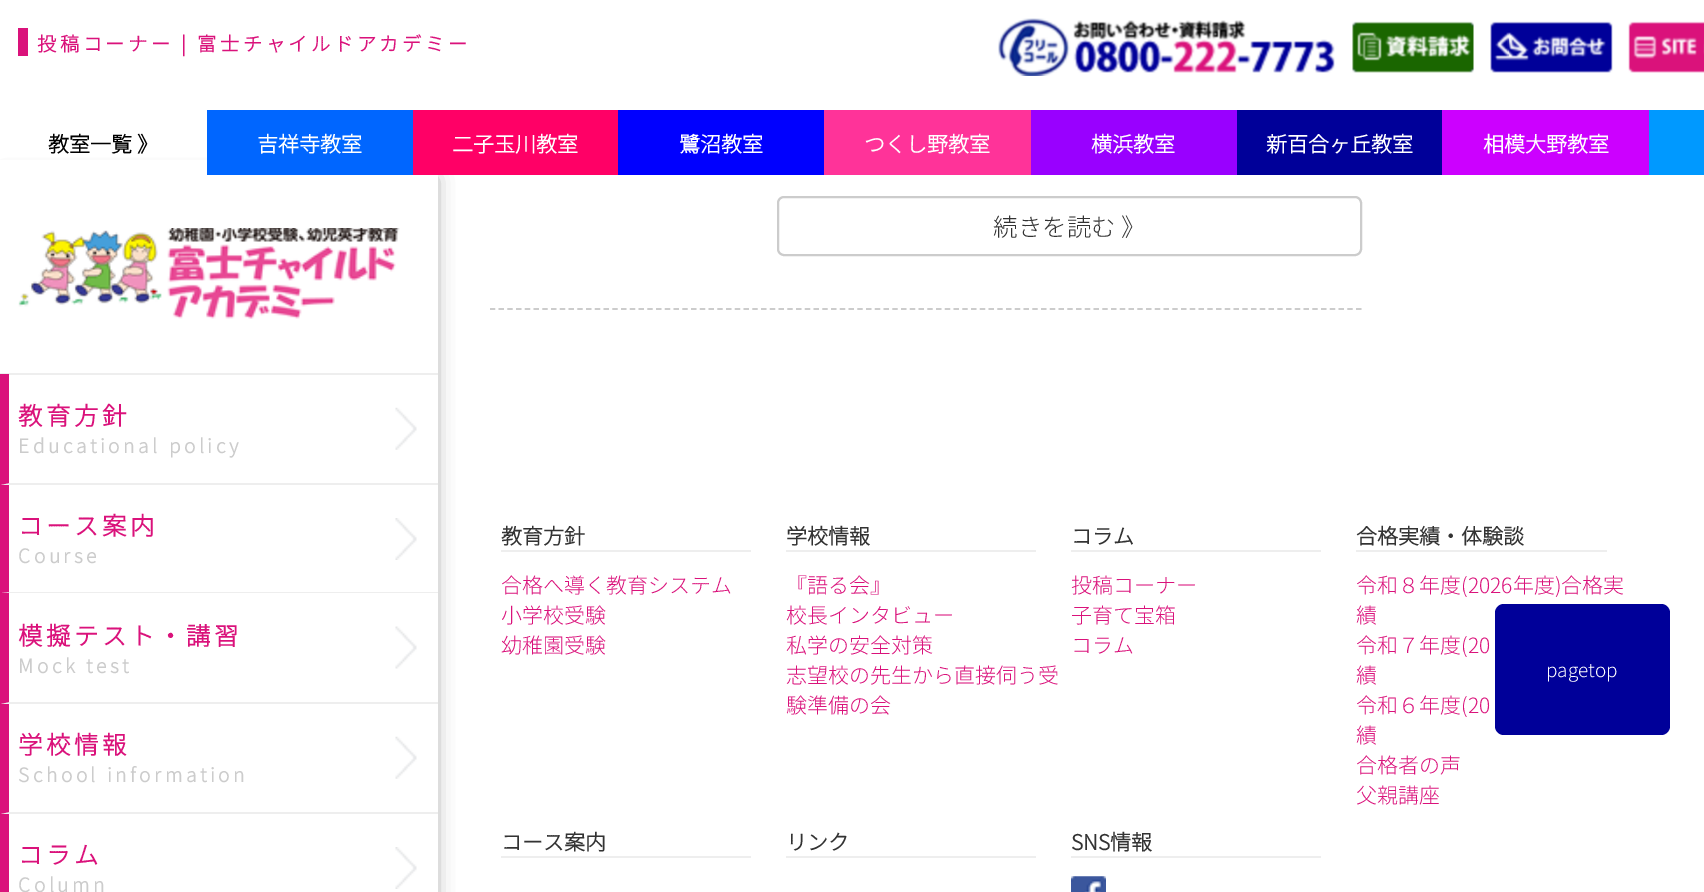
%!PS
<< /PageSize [1704 892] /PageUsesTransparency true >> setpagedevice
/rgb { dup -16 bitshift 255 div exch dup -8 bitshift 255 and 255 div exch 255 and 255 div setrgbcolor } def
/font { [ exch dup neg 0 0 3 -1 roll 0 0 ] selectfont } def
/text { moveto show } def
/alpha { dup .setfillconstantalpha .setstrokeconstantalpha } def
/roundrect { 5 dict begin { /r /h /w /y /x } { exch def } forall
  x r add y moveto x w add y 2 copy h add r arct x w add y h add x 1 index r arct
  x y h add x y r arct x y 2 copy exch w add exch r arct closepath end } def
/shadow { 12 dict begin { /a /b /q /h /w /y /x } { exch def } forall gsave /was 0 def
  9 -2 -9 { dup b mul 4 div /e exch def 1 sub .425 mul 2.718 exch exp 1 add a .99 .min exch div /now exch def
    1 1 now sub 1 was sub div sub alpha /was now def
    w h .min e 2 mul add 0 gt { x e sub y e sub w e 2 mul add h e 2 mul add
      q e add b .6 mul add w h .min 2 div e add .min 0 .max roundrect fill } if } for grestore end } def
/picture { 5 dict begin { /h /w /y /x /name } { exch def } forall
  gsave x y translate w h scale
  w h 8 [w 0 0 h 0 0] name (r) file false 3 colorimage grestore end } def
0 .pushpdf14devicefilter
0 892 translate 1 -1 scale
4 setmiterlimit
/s1 { /NotoSansJP-Bold 21 font 16#000000 rgb } def
/s2 { /NotoSansJP-Bold 21 font 16#FFFFFF rgb } def
/s3 { /NotoSansJP-Light 24.5 font 16#333333 rgb } def
/s4 { /NotoSansJP-Bold 21 font 16#333333 rgb } def
/s5 { /NotoSansJP-Light 21 font 16#DA127B rgb } def
/s6 { /NotoSansJP-Light 19 font 16#FFFFFF rgb } def
16#FFFFFF rgb
0 0 1704 892 rectfill
16#8A8A8A rgb
4 179 430 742 0 9.5 1 shadow
16#FFFFFF rgb
0 160 448 15 rectfill
/NotoSansJP-Bold 19.25 font
16#DA127B rgb
37 51 moveto 3.5 0 (投稿コーナー | 富士チャイルドアカデミー) ashow
18 28 10 28 rectfill
(pic1.raw) 998 18 337 58 picture
(pic2.raw) 1352 21 122 52 picture
(pic3.raw) 1490 21 123 52 picture
(pic4.raw) 1628 21 76 52 picture
s1
(教室一覧 》) 48 152 text
16#0066FF rgb
207 110 206 65 rectfill
s2
(吉祥寺教室) 257 152 text
16#FF0066 rgb
413 110 205 65 rectfill
s2
(二子玉川教室) 452 152 text
16#0000FF rgb
618 110 206 65 rectfill
s2
(鷺沼教室) 679 152 text
16#FF3399 rgb
824 110 207 65 rectfill
s2
(つくし野教室) 864 152 text
16#9900FF rgb
1031 110 206 65 rectfill
s2
(横浜教室) 1091 152 text
16#000099 rgb
1237 110 205 65 rectfill
s2
(新百合ヶ丘教室) 1266 152 text
16#CC00FF rgb
1442 110 207 65 rectfill
s2
(相模大野教室) 1483 152 text
16#0099FF rgb
1649 110 55 65 rectfill
16#FFFFFF rgb
0 175 438 198 rectfill
16#EEEEEE rgb
0 373 438 2 rectfill
(pic5.raw) 18 228 382 91 picture
16#FFFFFF rgb
0 375 438 439 rectfill
(pic6.raw) 395 407 22 43 picture
16#EEEEEE rgb
438 485 moveto 0 485 lineto 9 483 lineto 438 483 lineto closepath fill
16#DA127B rgb
0 485 moveto 0 374 lineto 9 374 lineto 9 483 lineto closepath fill
/NotoSansJP-Bold 24.5 font
18 425 moveto 3.5 0 (教育方針) ashow
/NotoSansJP-Bold 19.25 font
16#CCCCCC rgb
18 453 moveto 3.5 0 (Educational policy) ashow
(pic7.raw) 395 518 22 42 picture
16#EEEEEE rgb
438 593 moveto 0 593 lineto 9 592 lineto 438 592 lineto closepath fill
16#DA127B rgb
0 593 moveto 0 485 lineto 9 485 lineto 9 592 lineto closepath fill
/NotoSansJP-Bold 24.5 font
18 535 moveto 3.5 0 (コース案内) ashow
/NotoSansJP-Bold 19.25 font
16#CCCCCC rgb
18 563 moveto 3.5 0 (Course) ashow
(pic8.raw) 395 626 22 43 picture
16#EEEEEE rgb
438 704 moveto 0 704 lineto 9 702 lineto 438 702 lineto closepath fill
16#DA127B rgb
0 704 moveto 0 593 lineto 9 593 lineto 9 702 lineto closepath fill
/NotoSansJP-Bold 24.5 font
18 645 moveto 3.5 0 (模擬テスト・講習) ashow
/NotoSansJP-Bold 19.25 font
16#CCCCCC rgb
18 673 moveto 3.5 0 (Mock test) ashow
(pic9.raw) 395 736 22 43 picture
16#EEEEEE rgb
438 814 moveto 0 814 lineto 9 812 lineto 438 812 lineto closepath fill
16#DA127B rgb
0 814 moveto 0 704 lineto 9 704 lineto 9 812 lineto closepath fill
/NotoSansJP-Bold 24.5 font
18 754 moveto 3.5 0 (学校情報) ashow
/NotoSansJP-Bold 19.25 font
16#CCCCCC rgb
18 782 moveto 3.5 0 (School information) ashow
16#FFFFFF rgb
9 814 429 78 rectfill
(pic7.raw) 395 847 22 42 picture
16#DA127B rgb
0 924 moveto 0 814 lineto 9 814 lineto 9 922 lineto closepath fill
/NotoSansJP-Bold 24.5 font
18 864 moveto 3.5 0 (コラム) ashow
/NotoSansJP-Bold 19.25 font
16#CCCCCC rgb
18 892 moveto 3.5 0 (Column) ashow
1.8 setlinewidth
[5.25 3.5] 0 setdash
490 309 moveto 1361.5 309 lineto stroke
2 setlinewidth
[] 0 setdash
778 197 583 58 6 roundrect stroke
s3
(続きを読む 》) 993 236 text
16#EEEEEE rgb
501 550 250 2 rectfill
s4
(教育方針) 501 544 text
s5
(合格へ導く教育システム) 501 593 text
(小学校受験) 501 623 text
(幼稚園受験) 501 653 text
16#EEEEEE rgb
786 550 250 2 rectfill
s4
(学校情報) 786 544 text
s5
(『語る会』) 786 593 text
(校長インタビュー) 786 623 text
(私学の安全対策) 786 653 text
(志望校の先生から直接伺う受) 786 683 text
(験準備の会) 786 713 text
16#EEEEEE rgb
1071 550 250 2 rectfill
s4
(コラム) 1071 544 text
s5
(投稿コーナー) 1071 593 text
(子育て宝箱) 1071 623 text
(コラム) 1071 653 text
16#EEEEEE rgb
1356 550 251 2 rectfill
s4
(合格実績・体験談) 1356 544 text
s5
(令和８年度\(2026年度\)合格実) 1356 593 text
(績) 1356 623 text
(令和７年度\(20) 1356 653 text
(績) 1356 683 text
(令和６年度\(20) 1356 713 text
(績) 1356 743 text
(合格者の声) 1356 773 text
(父親講座) 1356 803 text
16#EEEEEE rgb
501 856 250 2 rectfill
s4
(コース案内) 501 850 text
16#EEEEEE rgb
786 856 250 2 rectfill
s4
(リンク) 786 850 text
16#EEEEEE rgb
1071 856 250 2 rectfill
s4
(SNS情報) 1071 850 text
(pic10.raw) 1071 876 35 16 picture
16#000099 rgb
1495 604 175 131 9 roundrect fill
s6
(pagetop) 1546 677 text
.poppdf14devicefilter showpage
